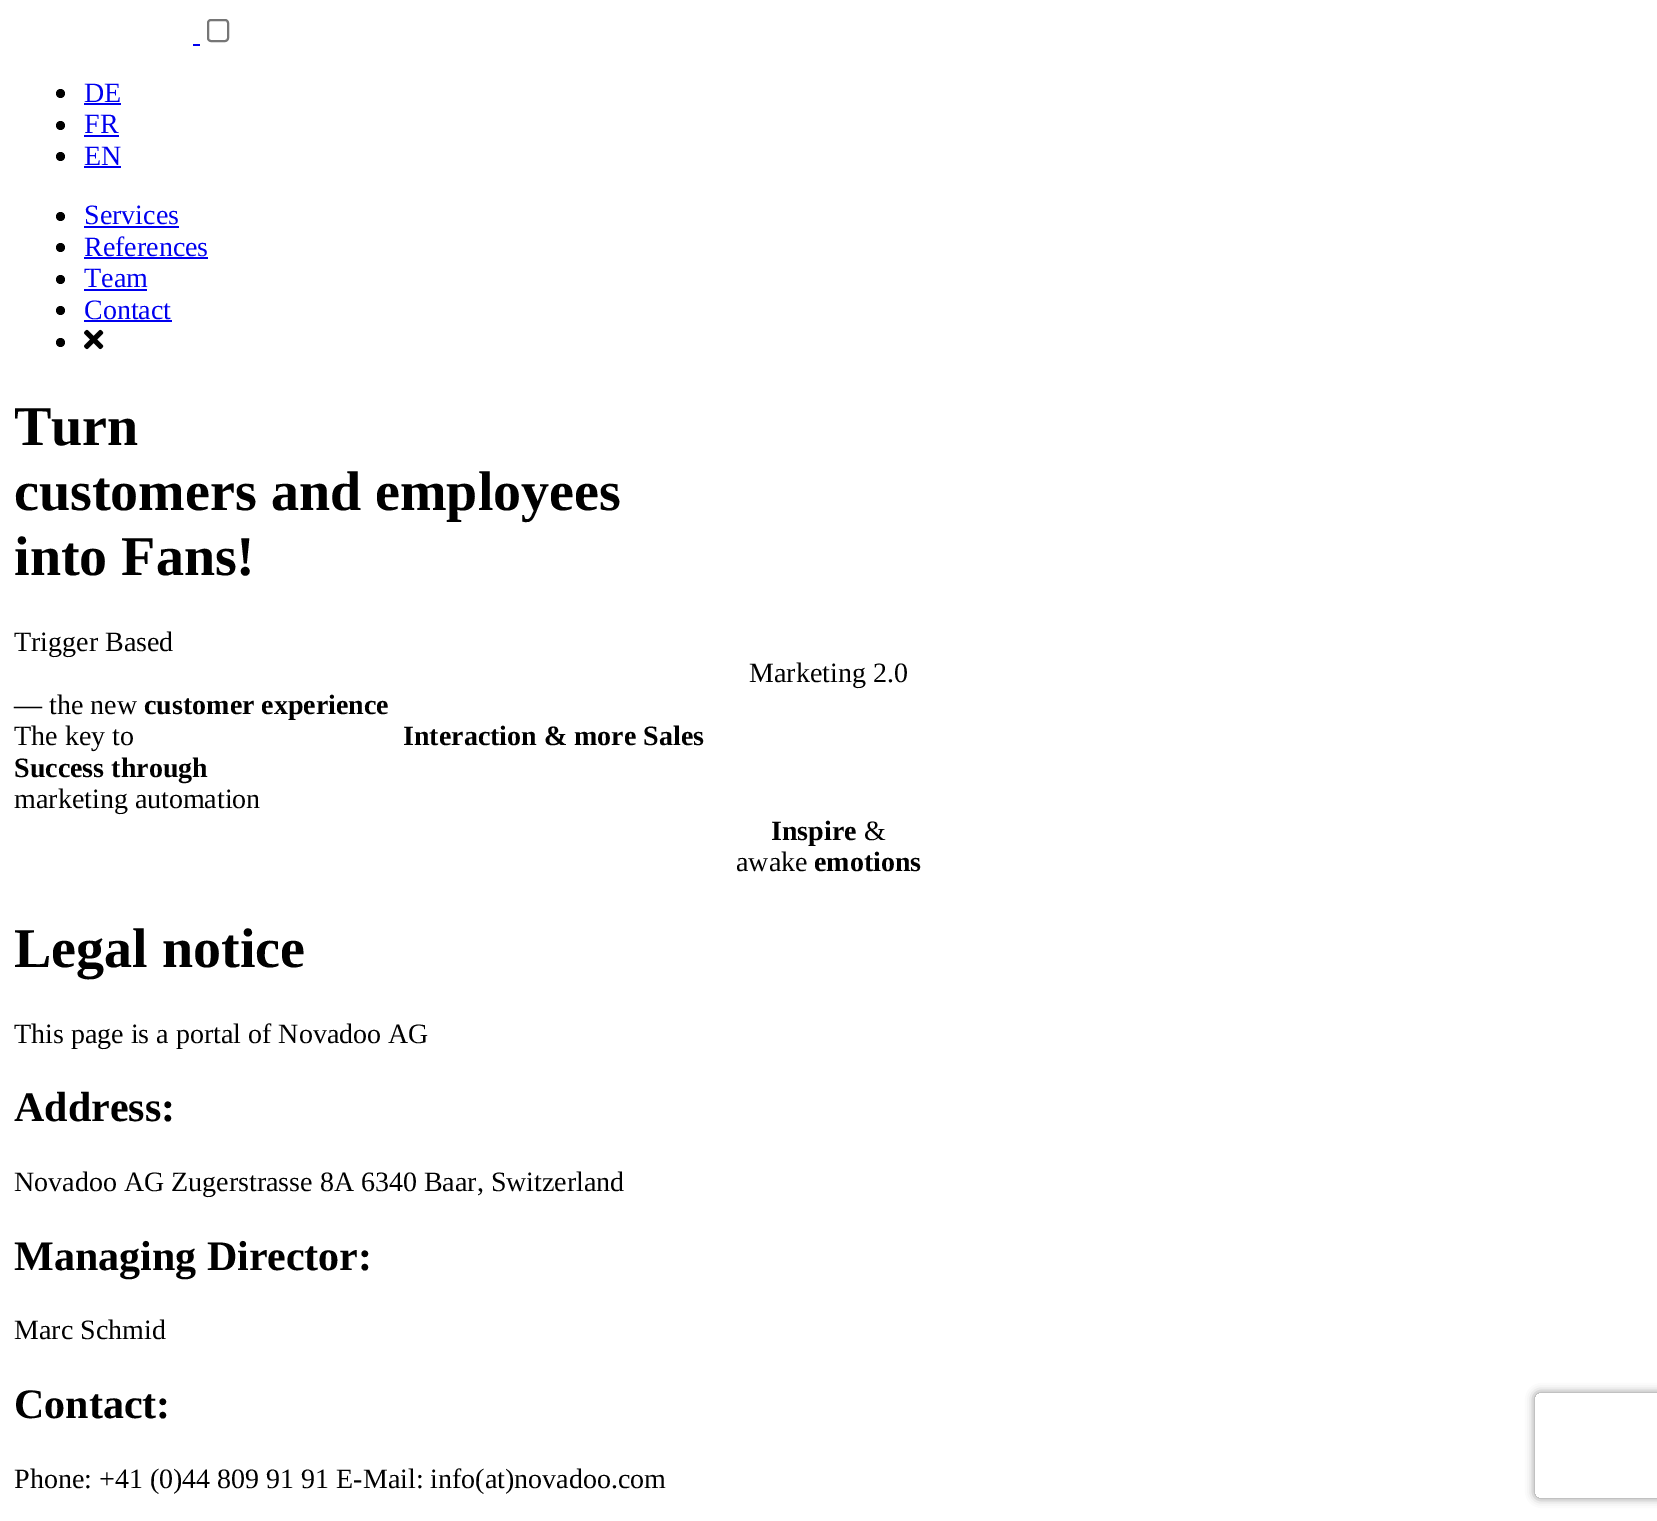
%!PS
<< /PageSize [1657 1521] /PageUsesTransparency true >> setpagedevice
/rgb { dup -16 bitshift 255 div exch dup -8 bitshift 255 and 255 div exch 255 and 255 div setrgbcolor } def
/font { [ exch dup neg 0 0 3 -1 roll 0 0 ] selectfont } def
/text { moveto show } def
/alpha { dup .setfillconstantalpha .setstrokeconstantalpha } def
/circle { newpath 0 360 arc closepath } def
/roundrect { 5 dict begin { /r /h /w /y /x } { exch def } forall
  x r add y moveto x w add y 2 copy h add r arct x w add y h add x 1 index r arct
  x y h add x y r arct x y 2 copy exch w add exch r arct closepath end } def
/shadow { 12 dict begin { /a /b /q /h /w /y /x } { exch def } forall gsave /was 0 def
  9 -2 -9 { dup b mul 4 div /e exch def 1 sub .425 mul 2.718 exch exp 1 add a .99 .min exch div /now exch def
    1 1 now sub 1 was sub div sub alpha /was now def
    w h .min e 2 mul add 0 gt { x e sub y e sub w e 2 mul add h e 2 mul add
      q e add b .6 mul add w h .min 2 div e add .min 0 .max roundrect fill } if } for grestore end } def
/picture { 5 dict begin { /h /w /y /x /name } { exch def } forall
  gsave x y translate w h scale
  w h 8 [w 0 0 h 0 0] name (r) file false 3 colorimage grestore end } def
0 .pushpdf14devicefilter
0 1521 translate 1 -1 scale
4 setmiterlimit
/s1 { /LiberationSerif-Regular 28 font 16#0000EE rgb } def
/s2 { /LiberationSerif-Bold 56 font 16#000000 rgb } def
/s3 { /LiberationSerif-Regular 28 font 16#000000 rgb } def
/s4 { /LiberationSerif-Bold 28 font 16#000000 rgb } def
/s5 { /LiberationSerif-Bold 42 font 16#000000 rgb } def
16#FFFFFF rgb
0 0 1657 1521 rectfill
16#767676 rgb
2 setlinewidth
208 20 20 21 3 roundrect stroke
16#0000EE rgb
193 44 7 2 rectfill
16#000000 rgb
60.5 93.5 4.5 circle fill
s1
(DE) 84 102 text
84 103 37 2 rectfill
16#000000 rgb
60.5 125.5 4.5 circle fill
s1
(FR) 84 133 text
84 135 35 2 rectfill
16#000000 rgb
60.5 156.5 4.5 circle fill
s1
(EN) 84 165 text
84 166 37 2 rectfill
16#000000 rgb
60.5 216.5 4.5 circle fill
s1
(Services) 84 224 text
84 226 95 2 rectfill
16#000000 rgb
60.5 247.5 4.5 circle fill
s1
(References) 84 256 text
84 257 124 2 rectfill
16#000000 rgb
60.5 279.5 4.5 circle fill
s1
(Team) 84 287 text
84 289 63 2 rectfill
16#000000 rgb
60.5 310.5 4.5 circle fill
s1
(Contact) 84 319 text
84 320 88 2 rectfill
16#000000 rgb
60.5 342.5 4.5 circle fill
(pic1.raw) 84 329 20 21 picture
s2
(Turn) 14 445 text
(customers and employees) 14 510 text
(into Fans!) 14 575 text
s3
(Trigger Based) 14 651 text
(Marketing 2.0) 749 682 text
(— the new) 14 714 text
s4
(customer experience) 144 714 text
s3
(The key to) 14 745 text
s4
(Interaction & more Sales) 403 745 text
(Success through) 14 777 text
s3
(marketing automation) 14 808 text
s4
(Inspire) 771 840 text
s3
(&) 864 840 text
(awake) 736 871 text
s4
(emotions) 814 871 text
s2
(Legal notice) 14 967 text
s3
(This page is a portal of Novadoo AG) 14 1043 text
s5
(Address:) 14 1121 text
s3
(Novadoo AG Zugerstrasse 8A 6340 Baar, Switzerland) 14 1191 text
s5
(Managing Director:) 14 1270 text
s3
(Marc Schmid) 14 1339 text
s5
(Contact:) 14 1418 text
s3
(Phone: +41 \(0\)44 809 91 91 E-Mail: info\(at\)novadoo.com) 14 1488 text
gsave
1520 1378 moveto 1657 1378 lineto 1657 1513 lineto 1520 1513 lineto closepath 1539 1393 moveto 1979 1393 lineto 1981 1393 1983 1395 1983 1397 curveto 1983 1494 lineto 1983 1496 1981 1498 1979 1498 curveto 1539 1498 lineto 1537 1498 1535 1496 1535 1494 curveto 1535 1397 lineto 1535 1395 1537 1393 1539 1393 curveto closepath eoclip newpath
16#808080 rgb
1535 1393 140 105 4 4.5 1 shadow
grestore
.poppdf14devicefilter showpage
